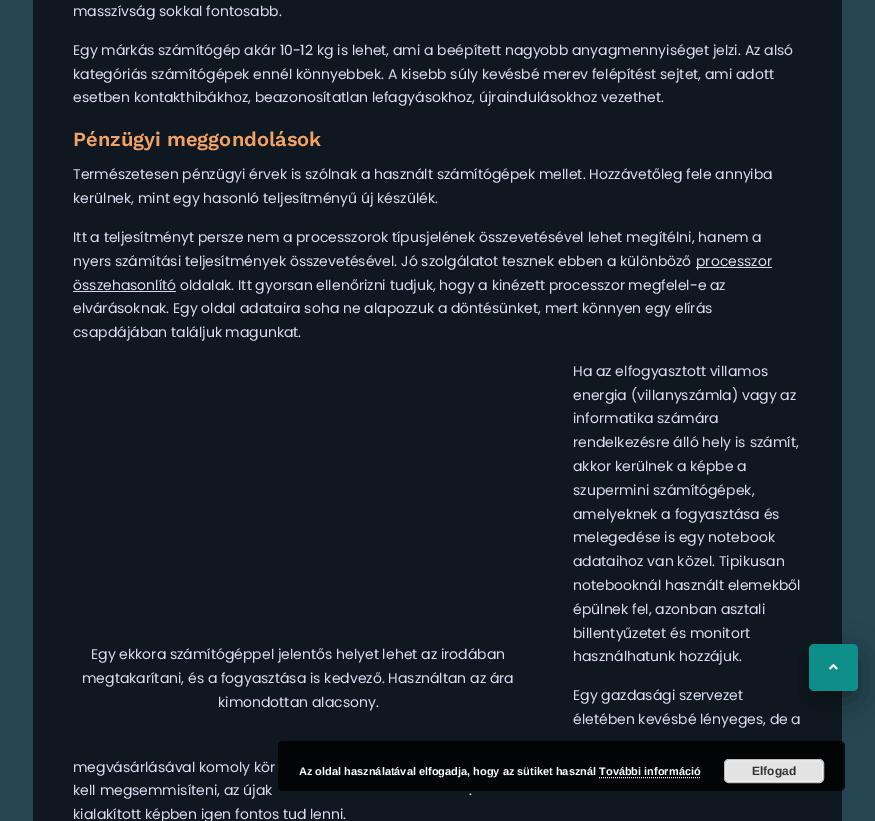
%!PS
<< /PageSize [875 821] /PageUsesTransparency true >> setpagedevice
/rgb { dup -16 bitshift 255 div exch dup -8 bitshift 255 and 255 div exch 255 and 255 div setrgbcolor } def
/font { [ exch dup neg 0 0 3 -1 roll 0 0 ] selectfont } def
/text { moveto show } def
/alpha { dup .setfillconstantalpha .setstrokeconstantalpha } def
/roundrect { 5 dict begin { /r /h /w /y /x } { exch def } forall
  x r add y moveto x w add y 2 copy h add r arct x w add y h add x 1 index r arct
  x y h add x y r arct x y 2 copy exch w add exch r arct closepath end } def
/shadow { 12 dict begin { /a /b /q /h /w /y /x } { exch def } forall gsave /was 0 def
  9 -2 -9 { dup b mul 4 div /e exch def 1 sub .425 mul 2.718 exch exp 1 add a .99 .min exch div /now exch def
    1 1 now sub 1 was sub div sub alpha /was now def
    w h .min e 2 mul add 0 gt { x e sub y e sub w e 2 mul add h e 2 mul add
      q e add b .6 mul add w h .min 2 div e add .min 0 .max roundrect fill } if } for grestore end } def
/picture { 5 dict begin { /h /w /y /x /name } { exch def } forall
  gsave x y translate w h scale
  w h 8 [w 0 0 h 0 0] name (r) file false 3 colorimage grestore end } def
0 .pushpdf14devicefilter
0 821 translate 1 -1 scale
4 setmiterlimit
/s1 { /Poppins-Regular 14 font 16#DBD9EF rgb } def
/s2 { /WorkSans-SemiBold 20.1 font 16#F4A261 rgb } def
/s3 { /LiberationSans-Bold 11 font 16#FFFFFF rgb } def
/s4 { /LiberationSans-Bold 12 font 16#333333 rgb } def
16#264653 rgb
0 0 875 821 rectfill
16#0F1821 rgb
33 0 809 821 rectfill
s1
(masszívság sokkal fontosabb.) 73 16 text
(Egy márkás számítógép akár 10-12 kg is lehet, ami a beépített nagyobb anyagmennyiséget jelzi. Az alsó) 73 55 text
(kategóriás számítógépek ennél könnyebbek. A kisebb súly kevésbé merev felépítést sejtet, ami adott) 73 79 text
(esetben kontakthibákhoz, beazonosítatlan lefagyásokhoz, újraindulásokhoz vezethet.) 73 102 text
s2
(Pénzügyi meggondolások) 73 146 text
s1
(Természetesen pénzügyi érvek is szólnak a használt számítógépek mellet. Hozzávetőleg fele annyiba) 73 179 text
(kerülnek, mint egy hasonló teljesítményű új készülék.) 73 203 text
(Itt a teljesítményt persze nem a processzorok típusjelének összevetésével lehet megítélni, hanem a) 73 242 text
(nyers számítási teljesítmények összevetésével. Jó szolgálatot tesznek ebben a különböző) 73 266 text
696 267 76 1 rectfill
(processzor) 696 266 text
73 291 103 1 rectfill
(összehasonlító oldalak. Itt gyorsan ellenőrizni tudjuk, hogy a kinézett processzor megfelel-e az) 73 290 text
(elvárásoknak. Egy oldal adataira soha ne alapozzuk a döntésünket, mert könnyen egy elírás) 73 313 text
(csapdájában találjuk magunkat.) 73 337 text
(Ha az elfogyasztott villamos) 573 376 text
(energia \(villanyszámla\) vagy az) 573 400 text
(informatika számára) 573 423 text
(rendelkezésre álló hely is számít,) 573 447 text
(akkor kerülnek a képbe a) 573 471 text
(szupermini számítógépek,) 573 495 text
(amelyeknek a fogyasztása és) 573 519 text
(melegedése is egy notebook) 573 542 text
(adataihoz van közel. Tipikusan) 573 566 text
(notebooknál használt elemekből) 573 590 text
(épülnek fel, azonban asztali) 573 614 text
(billentyűzetet és monitort) 573 638 text
(használhatunk hozzájuk.) 573 661 text
(Egy ekkora számítógéppel jelentős helyet lehet az irodában) 91 659 text
(megtakarítani, és a fogyasztása is kedvező. Használtan az ára) 82 683 text
(kimondottan alacsony.) 218 707 text
(Egy gazdasági szervezet) 573 700 text
(életében kevésbé lényeges, de a) 573 724 text
(megvásárlásával komoly kör) 73 772 text
(kell megsemmisíteni, az újak) 73 795 text
(.) 469 795 text
(kialakított képben igen fontos tud lenni.) 73 819 text
gsave
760 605 moveto 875 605 lineto 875 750 lineto 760 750 lineto closepath 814 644 moveto 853 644 lineto 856 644 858 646 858 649 curveto 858 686 lineto 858 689 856 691 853 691 curveto 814 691 lineto 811 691 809 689 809 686 curveto 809 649 lineto 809 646 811 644 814 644 curveto closepath eoclip newpath
16#000000 rgb
809 654 49 47 5 16 0.39 shadow
grestore
0.98 alpha
16#0E908A rgb
809 644 49 47 5 roundrect fill
1 alpha
(pic1.raw) 829 664 9 6 picture
0.85 alpha
16#000000 rgb
278 741 567 50 5 roundrect fill
1 alpha
s3
(Az oldal használatával elfogadja, hogy az sütiket használ További információ) 299 775 text
16#E3E3E3 rgb
724 759 100 24 5 roundrect fill
16#F6F6F6 rgb
725.5 760.5 97 21 3.5 roundrect stroke
16#BBBBBB rgb
724.5 759.5 99 23 4.5 roundrect stroke
s4
(Elfogad) 752 775 text
16#FFFFFF rgb
[1 1] 0 setdash
599 777.5 moveto 701 777.5 lineto stroke
.poppdf14devicefilter showpage
